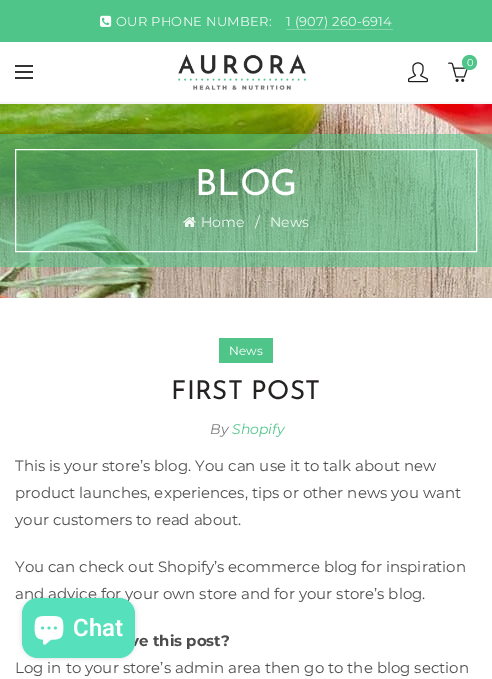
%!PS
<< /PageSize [492 679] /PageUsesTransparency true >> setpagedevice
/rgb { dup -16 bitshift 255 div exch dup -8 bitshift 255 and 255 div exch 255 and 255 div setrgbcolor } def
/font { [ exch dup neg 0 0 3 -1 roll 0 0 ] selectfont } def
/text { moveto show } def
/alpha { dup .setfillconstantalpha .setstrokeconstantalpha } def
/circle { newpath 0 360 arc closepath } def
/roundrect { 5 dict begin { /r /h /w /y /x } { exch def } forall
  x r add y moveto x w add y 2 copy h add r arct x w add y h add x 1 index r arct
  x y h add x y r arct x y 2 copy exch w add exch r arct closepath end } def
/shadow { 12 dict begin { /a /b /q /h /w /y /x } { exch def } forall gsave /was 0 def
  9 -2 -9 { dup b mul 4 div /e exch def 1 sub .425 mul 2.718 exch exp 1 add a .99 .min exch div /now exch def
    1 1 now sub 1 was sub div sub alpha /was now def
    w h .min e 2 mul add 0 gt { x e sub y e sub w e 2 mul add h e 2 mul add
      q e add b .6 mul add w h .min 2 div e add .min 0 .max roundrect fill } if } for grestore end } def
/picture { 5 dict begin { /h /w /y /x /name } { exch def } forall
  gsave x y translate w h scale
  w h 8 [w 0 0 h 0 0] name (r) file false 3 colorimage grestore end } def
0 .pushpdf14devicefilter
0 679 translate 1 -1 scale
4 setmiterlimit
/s1 { /Montserrat-Regular 10 font 16#FFFFFF rgb } def
/s2 { /JosefinSans-Regular 36 font 16#FFFFFF rgb } def
/s3 { /Montserrat-Regular 14 font 16#EEF9F3 rgb } def
/s4 { /Montserrat-Regular 12 font 16#FFFFFF rgb } def
/s5 { /Montserrat-Italic 14 font 16#787878 rgb } def
/s6 { /Montserrat-Italic 14 font 16#50C58A rgb } def
/s7 { /Montserrat-Regular 15 font 16#4C4C4C rgb } def
/s8 { /Montserrat-Bold 15 font 16#4C4C4C rgb } def
/s9 { /Roboto-SemiBold 24 font 16#FFFFFF rgb } def
16#FFFFFF rgb
0 0 492 679 rectfill
16#50C58A rgb
0 0 492 42 rectfill
(pic1.raw) 100 15 12 12 picture
/Montserrat-Regular 13 font
16#EEF9F3 rgb
116 26 moveto 0.25 0 (OUR PHONE NUMBER:) ashow
286 26 moveto 0.25 0 (1 \(907\) 260-6914) ashow
16#85D6AD rgb
286 29 107 1 rectfill
16#F5F5F5 rgb
0 102 492 2 rectfill
(pic2.raw) 178 54 129 36 picture
(pic3.raw) 408 62 20 21 picture
(pic4.raw) 448 62 20 20 picture
16#50C58A rgb
469.5 62.5 7.5 circle fill
s1
(0) 467 66 text
16#333333 rgb
15 71 18 2 rectfill
15 65 18 2 rectfill
15 77 18 2 rectfill
(pic5.raw) 0 104 492 194 picture
0.15 alpha
16#A8A8A8 rgb
0 297 492 1 rectfill
0.58 alpha
16#50C58A rgb
0 134 492 133 rectfill
1 alpha
16#FFFFFF rgb
15.5 149.5 461 102 rectstroke
s2
(BLOG) 195 195 text
(pic6.raw) 183 217 13 10 picture
s3
(Home) 201 227 text
(/) 255 227 text
(News) 270 227 text
16#50C58A rgb
219 338 54 25 rectfill
s4
(News) 229 355 text
/JosefinSans-Regular 26 font
16#252222 rgb
171 399 moveto 0.25 0 (FIRST POST) ashow
s5
(By) 210 434 text
s6
(Shopify) 232 434 text
s7
(This is your store’s blog. You can use it to talk about new) 15 471 text
(product launches, experiences, tips or other news you want) 15 498 text
(your customers to read about.) 15 525 text
(You can check out Shopify’s ecommerce blog for inspiration) 15 572 text
(and advice for your own store and for your store’s blog.) 15 599 text
s8
(ve this post?) 130 646 text
s7
(Log in to your store’s) 15 673 text
(admin area) 175 673 text
(then go to the blog section) 265 673 text
16#000000 rgb
22 598 113 60 16 2.5 0.15 shadow
16#56E1BC rgb
22 598 113 60 16 roundrect fill
(pic7.raw) 34 616 30 29 picture
s9
(Chat) 73 636 text
.poppdf14devicefilter showpage
